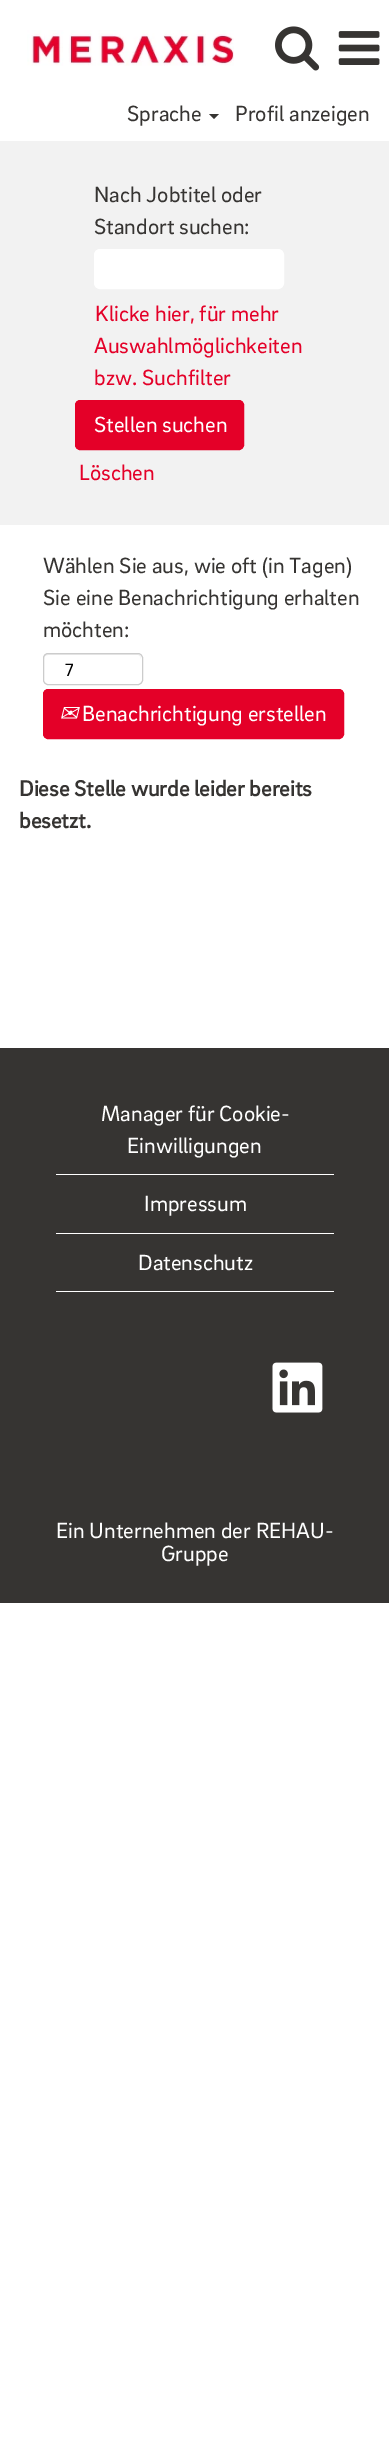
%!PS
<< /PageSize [389 2449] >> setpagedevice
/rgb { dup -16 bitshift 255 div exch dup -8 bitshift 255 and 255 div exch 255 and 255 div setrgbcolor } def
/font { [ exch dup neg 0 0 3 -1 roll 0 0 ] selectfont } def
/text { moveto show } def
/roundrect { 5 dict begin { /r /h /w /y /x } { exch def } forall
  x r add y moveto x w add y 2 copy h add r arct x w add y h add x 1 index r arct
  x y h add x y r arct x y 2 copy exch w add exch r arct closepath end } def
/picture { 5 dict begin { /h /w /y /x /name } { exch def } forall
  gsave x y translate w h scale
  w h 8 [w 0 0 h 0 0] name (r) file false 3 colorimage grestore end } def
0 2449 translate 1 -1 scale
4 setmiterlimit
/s1 { /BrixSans-Regular 22.5 font 16#363432 rgb } def
/s2 { /BrixSans-Regular 22.5 font 16#E40028 rgb } def
/s3 { /BrixSans-Regular 22.5 font 16#FFFFFF rgb } def
/s4 { /BrixSans-Regular 18 font 16#000000 rgb } def
/s5 { /DejaVuSans-Italic 22.5 font 16#FFFFFF rgb } def
/s6 { /BrixSans-Bold 22.5 font 16#363432 rgb } def
16#FFFFFF rgb
0 0 389 2449 rectfill
(pic1.raw) 27 30 207 36 picture
(pic2.raw) 275 26 45 45 picture
(pic3.raw) 338 31 42 34 picture
s1
(Sprache) 127 121 text
209 114 moveto 219 114 lineto 214 119 lineto closepath fill
(Profil anzeigen) 235 121 text
16#F2F2F2 rgb
0 141 389 384 rectfill
s1
(Nach Jobtitel oder) 94 202 text
(Standort suchen:) 94 234 text
16#FFFFFF rgb
95.5 250.5 187 37 4.5 roundrect gsave fill grestore
3 setlinewidth
stroke
s2
(Klicke hier, für mehr) 95 321 text
(Auswahlmöglichkeiten) 94 353 text
(bzw. Suchfilter) 94 385 text
75.5 400.5 168 49 4.5 roundrect gsave fill grestore
1 setlinewidth
stroke
s3
(Stellen suchen) 94 432 text
s2
(Löschen) 79 480 text
s1
(Wählen Sie aus, wie oft \(in Tagen\)) 43 573 text
(Sie eine Benachrichtigung erhalten) 43 605 text
(möchten:) 43 637 text
16#ECECEC rgb
48 655 moveto 138 655 lineto 140 655 141 657 141 659 curveto 141 650 127 654 122 654 curveto 63 654 lineto 58 654 44 650 44 659 curveto 44 657 45 655 48 655 curveto closepath fill
16#CCCCCC rgb
43.5 653.5 99 31 4.5 roundrect stroke
s4
(7) 65 676 text
16#E40028 rgb
43.5 689.5 300 49 4.5 roundrect gsave fill grestore
stroke
s5
(✉) 59 721 text
s3
(Benachrichtigung erstellen) 82 721 text
s6
(Diese Stelle wurde leider bereits) 19 796 text
(besetzt.) 19 828 text
0 1048 389 555 rectfill
16#FFFFFF rgb
56 1174 278 1 rectfill
s3
(Manager für Cookie-) 101 1121 text
(Einwilligungen) 127 1153 text
56 1233 278 1 rectfill
(Impressum) 144 1211 text
56 1291 278 1 rectfill
(Datenschutz) 138 1270 text
(pic4.raw) 272 1362 51 51 picture
(Ein Unternehmen der REHAU-) 56 1538 text
(Gruppe) 161 1561 text
showpage
